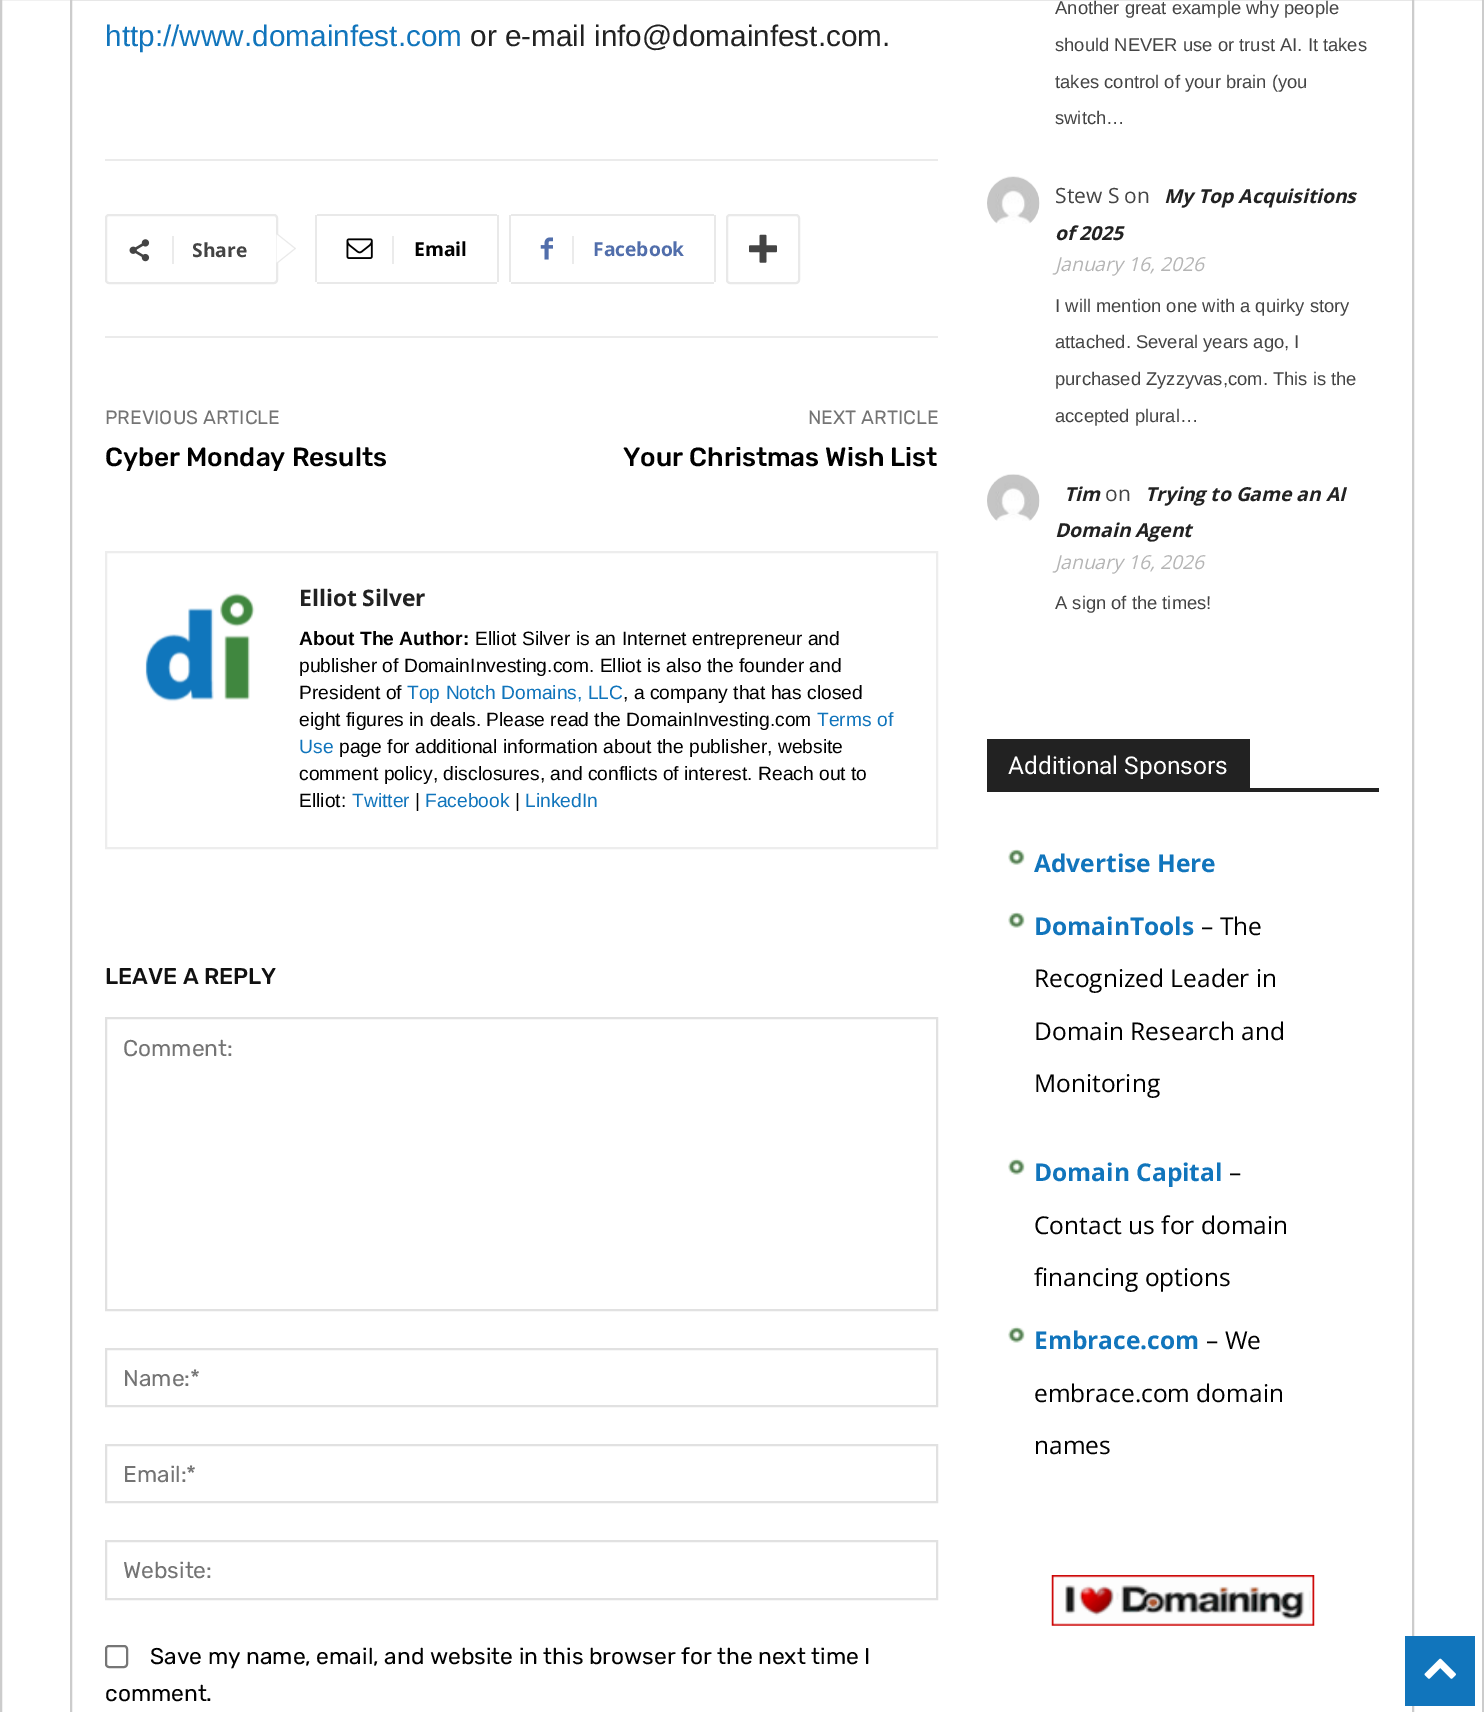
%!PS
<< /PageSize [1484 1712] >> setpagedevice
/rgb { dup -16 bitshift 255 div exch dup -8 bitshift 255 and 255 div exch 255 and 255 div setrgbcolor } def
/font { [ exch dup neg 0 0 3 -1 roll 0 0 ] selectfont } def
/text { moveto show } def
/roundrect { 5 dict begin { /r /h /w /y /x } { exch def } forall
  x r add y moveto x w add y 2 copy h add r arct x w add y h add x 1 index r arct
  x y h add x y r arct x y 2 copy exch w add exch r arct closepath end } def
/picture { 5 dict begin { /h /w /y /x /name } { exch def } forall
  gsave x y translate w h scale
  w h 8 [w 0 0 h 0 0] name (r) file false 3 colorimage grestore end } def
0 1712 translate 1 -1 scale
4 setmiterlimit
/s1 { /LiberationSans-Regular 29.75 font 16#1175BC rgb } def
/s2 { /LiberationSans-Regular 29.75 font 16#222222 rgb } def
/s3 { /OpenSans-Bold 19.25 font 16#444444 rgb } def
/s4 { /OpenSans-Bold 19.25 font 16#000000 rgb } def
/s5 { /OpenSans-Bold 19.25 font 16#516EAB rgb } def
/s6 { /Rubik-Regular 19.25 font 16#747474 rgb } def
/s7 { /Rubik-Medium 26.25 font 16#000000 rgb } def
/s8 { /OpenSans-Bold 22.75 font 16#222222 rgb } def
/s9 { /LiberationSans-Bold 19.25 font 16#000000 rgb } def
/s10 { /LiberationSans-Regular 19.25 font 16#000000 rgb } def
/s11 { /LiberationSans-Regular 19.25 font 16#1175BC rgb } def
/s12 { /Rubik-Medium 22.75 font 16#111111 rgb } def
/s13 { /Rubik-Regular 22.75 font 16#747474 rgb } def
/s14 { /Rubik-Regular 22.75 font 16#000000 rgb } def
/s15 { /LiberationSans-Regular 18.4 font 16#444444 rgb } def
/s16 { /OpenSans-Regular 21 font 16#444444 rgb } def
/s17 { /OpenSans-BoldItalic 19.25 font 16#222222 rgb } def
/s18 { /OpenSans-Italic 19.25 font 16#B5B5B5 rgb } def
/s19 { /Roboto-Regular 24.5 font 16#FFFFFF rgb } def
/s20 { /OpenSans-Bold 24.5 font 16#1175BC rgb } def
/s21 { /OpenSans-Regular 24.5 font 16#000000 rgb } def
16#FFFFFF rgb
0 0 1484 1712 rectfill
16#CCCCCC rgb
2 setlinewidth
1 -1 1482 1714 rectstroke
71 -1 1342 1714 rectstroke
s1
(http://www.domainfest.com) 105 46 text
s2
(or e-mail info@domainfest.com.) 470 46 text
16#EBEBEB rgb
105 159 833 2 rectfill
16#E9E9E9 rgb
106 215 171 68 3 roundrect stroke
276.5 264 moveto 276.5 233 lineto 296 248.5 lineto closepath fill
(pic1.raw) 129 239 21 23 picture
16#EBEBEB rgb
172 236 2 28 rectfill
s3
(Share) 192 257 text
16#FFFFFF rgb
276.5 262.5 moveto 276.5 234.5 lineto 294 248.5 lineto closepath fill
16#E9E9E9 rgb
315 215 2 67 rectfill
(pic2.raw) 346 238 27 21 picture
317 214 180 2 rectfill
497 215 2 67 rectfill
317 282 180 2 rectfill
16#EBEBEB rgb
392 236 2 28 rectfill
s4
(Email) 414 256 text
16#E9E9E9 rgb
509 215 2 67 rectfill
(pic3.raw) 540 237 13 23 picture
511 214 203 2 rectfill
714 215 2 67 rectfill
511 282 203 2 rectfill
16#EBEBEB rgb
572 236 2 28 rectfill
s5
(Facebook) 593 256 text
16#E9E9E9 rgb
727 215 72 68 3 roundrect stroke
(pic4.raw) 749 234 28 29 picture
16#EBEBEB rgb
105 336 833 2 rectfill
s6
(PREVIOUS ARTICLE) 105 424 text
s7
(Cyber Monday Results) 105 466 text
s6
(NEXT ARTICLE) 808 424 text
s7
(Your Christmas Wish List) 623 466 text
16#EDEDED rgb
106 552 831 296 rectstroke
(pic5.raw) 145 593 110 109 picture
s8
(Elliot Silver) 299 606 text
s9
(About The Author:) 299 645 text
s10
(Elliot Silver is an Internet entrepreneur and) 475 645 text
(publisher of DomainInvesting.com. Elliot is also the founder and) 299 672 text
(President of) 299 699 text
s11
(Top Notch Domains, LLC) 407 699 text
s10
(, a company that has closed) 623 699 text
(eight figures in deals. Please read the DomainInvesting.com) 299 726 text
s11
(Terms of) 817 726 text
(Use) 299 753 text
s10
(page for additional information about the publisher, website) 339 753 text
(comment policy, disclosures, and conflicts of interest. Reach out to) 299 780 text
(Elliot:) 299 807 text
s11
(Twitter) 352 807 text
s10
(|) 415 807 text
s11
(Facebook) 425 807 text
s10
(|) 515 807 text
s11
(LinkedIn) 525 807 text
s12
(LEAVE A REPLY) 105 984 text
16#E1E1E1 rgb
106 1018 831 292 rectstroke
s13
(Comment:) 123 1056 text
16#E1E1E1 rgb
106 1349 831 57 rectstroke
s13
(Name:*) 123 1386 text
16#E1E1E1 rgb
106 1445 831 57 rectstroke
s13
(Email:*) 123 1482 text
16#E1E1E1 rgb
106 1541 831 58 rectstroke
s13
(Website:) 123 1578 text
16#767676 rgb
106 1646 21 21 3 roundrect stroke
s14
(Save my name, email, and website in this browser for the next time I) 150 1664 text
(comment.) 105 1701 text
s15
(Another great example why people) 1055 14 text
(should NEVER use or trust AI. It takes) 1055 51 text
(takes control of your brain \(you) 1055 88 text
(switch…) 1055 124 text
(pic6.raw) 987 176 53 48 picture
s16
(Stew S on) 1055 203 text
s17
(My Top Acquisitions) 1164 203 text
(of 2025) 1055 240 text
s18
(January 16, 2026) 1055 271 text
s15
(I will mention one with a quirky story) 1055 312 text
(attached. Several years ago, I) 1055 348 text
(purchased Zyzzyvas,com. This is the) 1055 385 text
(accepted plural…) 1055 422 text
(pic7.raw) 987 474 53 47 picture
s17
(Tim) 1064 501 text
s16
(on) 1105 501 text
s17
(Trying to Game an AI) 1145 501 text
(Domain Agent) 1055 537 text
s18
(January 16, 2026) 1055 569 text
s15
(A sign of the times!) 1055 609 text
16#222222 rgb
987 788 392 4 rectfill
987 739 263 49 rectfill
s19
(Additional Sponsors) 1008 774 text
(pic8.raw) 1008 849 17 16 picture
s20
(Advertise Here) 1034 872 text
(pic8.raw) 1008 912 17 16 picture
(DomainTools) 1034 935 text
s21
(– The) 1201 935 text
(Recognized Leader in) 1034 987 text
(Domain Research and) 1034 1040 text
(Monitoring) 1034 1092 text
(pic9.raw) 1008 1158 17 17 picture
s20
(Domain Capital) 1034 1181 text
s21
(–) 1229 1181 text
(Contact us for domain) 1034 1234 text
(financing options) 1034 1286 text
(pic9.raw) 1008 1326 17 17 picture
s20
(Embrace.com) 1034 1349 text
s21
(– We) 1206 1349 text
(embrace.com domain) 1034 1402 text
(names) 1034 1454 text
(pic10.raw) 1051 1575 264 51 picture
16#1175BC rgb
1405 1636 70 70 rectfill
(pic11.raw) 1424 1658 32 21 picture
showpage
